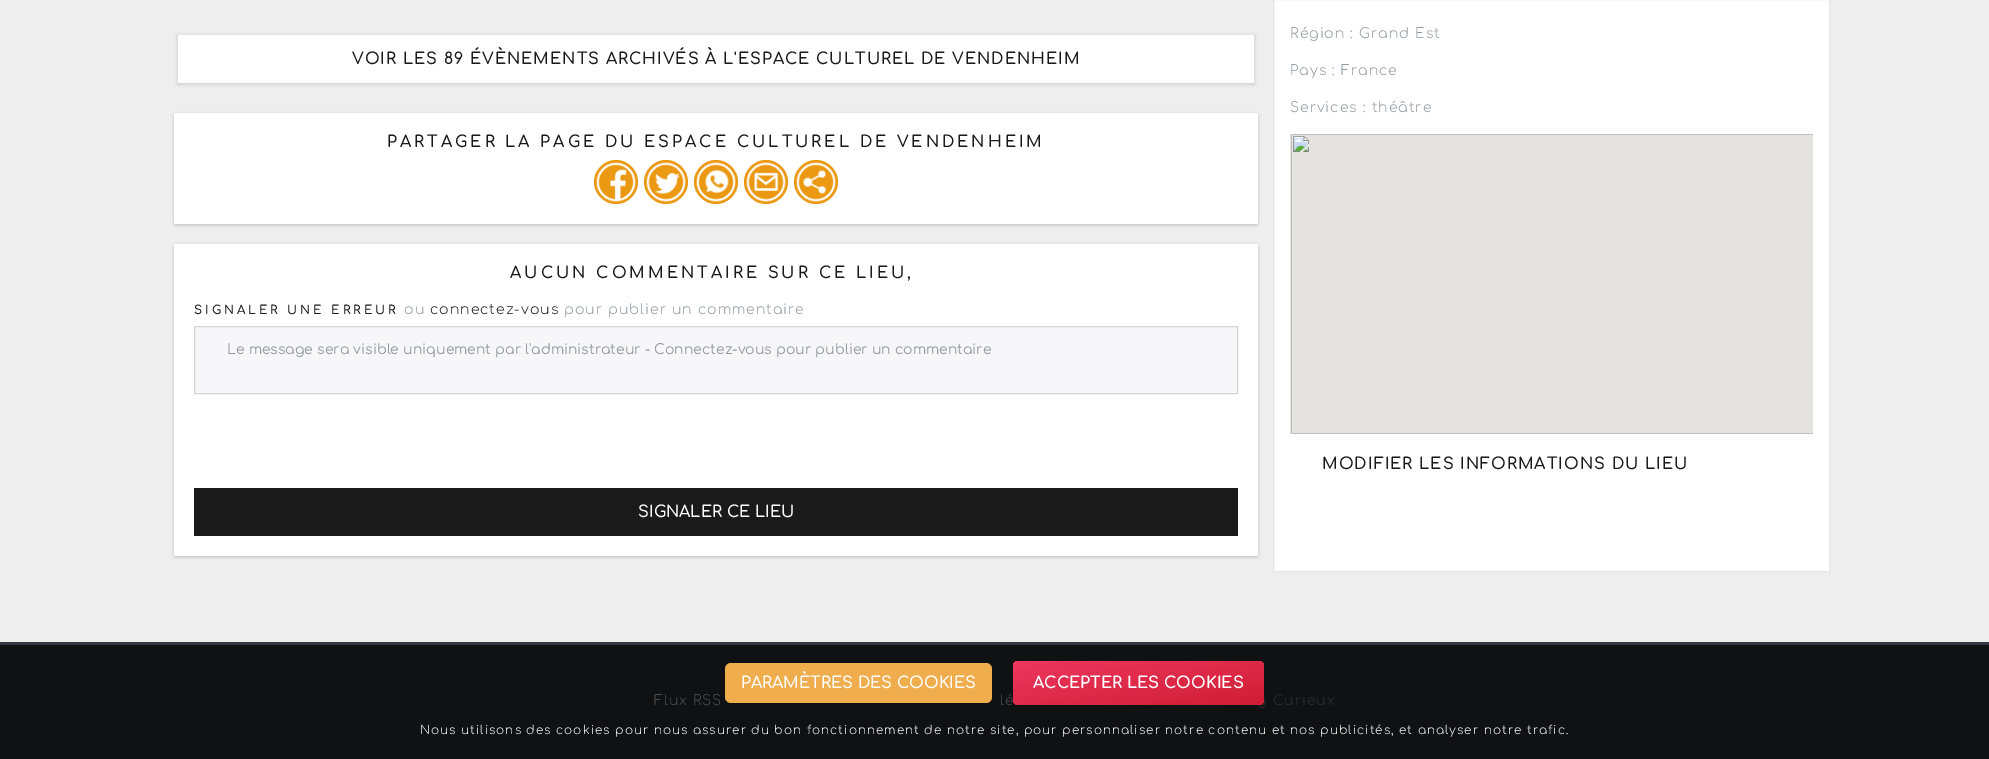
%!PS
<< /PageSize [1989 759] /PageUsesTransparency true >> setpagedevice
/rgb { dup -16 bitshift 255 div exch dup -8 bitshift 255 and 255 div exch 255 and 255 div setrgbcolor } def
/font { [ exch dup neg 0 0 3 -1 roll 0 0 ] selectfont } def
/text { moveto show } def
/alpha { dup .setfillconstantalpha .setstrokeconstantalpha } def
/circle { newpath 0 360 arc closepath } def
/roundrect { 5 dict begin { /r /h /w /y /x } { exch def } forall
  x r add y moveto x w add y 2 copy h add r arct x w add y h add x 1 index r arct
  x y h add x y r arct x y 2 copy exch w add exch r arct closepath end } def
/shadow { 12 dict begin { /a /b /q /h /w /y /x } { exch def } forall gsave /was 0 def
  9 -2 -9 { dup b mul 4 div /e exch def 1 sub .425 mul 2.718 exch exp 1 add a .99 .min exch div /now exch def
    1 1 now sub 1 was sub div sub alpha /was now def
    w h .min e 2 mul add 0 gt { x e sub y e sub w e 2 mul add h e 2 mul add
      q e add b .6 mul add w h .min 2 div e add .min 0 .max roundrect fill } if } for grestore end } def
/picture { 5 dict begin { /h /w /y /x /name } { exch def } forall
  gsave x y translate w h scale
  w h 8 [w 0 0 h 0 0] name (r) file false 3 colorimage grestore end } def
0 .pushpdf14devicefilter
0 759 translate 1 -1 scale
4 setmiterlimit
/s1 { /Comfortaa-Regular 14 font 16#919AA1 rgb } def
/s2 { /Comfortaa-SemiBold 16 font 16#FFFFFF rgb } def
/s3 { /Comfortaa-Bold 16 font 16#FFFFFF rgb } def
16#EEEEEE rgb
0 0 1989 759 rectfill
16#000000 rgb
177 35 1078 50 0 1.5 0.1 shadow
16#FFFFFF rgb
178 35 1076 48 rectfill
/Comfortaa-SemiBold 16 font
16#1A1A1A rgb
352 64 moveto 1 0 (VOIR LES 89 ÉVÈNEMENTS ARCHIVÉS À L'ESPACE CULTUREL DE VENDENHEIM) ashow
16#BBBBBB rgb
174 114 1084 111 2 1.5 1 shadow
16#FFFFFF rgb
174 113 1084 111 2 roundrect fill
16#1A1A1A rgb
387 147 moveto 3 0 (PARTAGER LA PAGE DU ESPACE CULTUREL DE VENDENHEIM) ashow
16#EB9812 rgb
616 182 22 circle fill
(pic1.raw) 596 162 40 40 picture
666 182 22 circle fill
(pic2.raw) 646 162 40 40 picture
716 182 22 circle fill
(pic3.raw) 696 162 40 40 picture
766 182 22 circle fill
(pic4.raw) 746 162 40 40 picture
816 182 22 circle fill
(pic5.raw) 796 162 40 40 picture
16#BBBBBB rgb
174 245 1084 312 2 1.5 1 shadow
16#FFFFFF rgb
174 244 1084 312 2 roundrect fill
16#1A1A1A rgb
510 278 moveto 3 0 (AUCUN COMMENTAIRE SUR CE LIEU,) ashow
/Comfortaa-SemiBold 12 font
194 314 moveto 3 0 (SIGNALER UNE ERREUR) ashow
/Comfortaa-Light 14 font
16#919AA1 rgb
404 314 moveto 1 0 (ou) ashow
16#1A1A1A rgb
430 314 moveto 1 0 (connectez-vous) ashow
16#919AA1 rgb
564 314 moveto 1 0 (pour publier un commentaire) ashow
16#F7F7F9 rgb
194.5 326.5 moveto 1237.5 326.5 lineto 1237.5 393.5 lineto 194.5 393.5 lineto closepath gsave fill grestore
16#D3D3D3 rgb
stroke
s1
(Le message sera visible uniquement par l'administrateur - Connectez-vous pour publier un commentaire) 227 354 text
16#1A1A1A rgb
194 488 1044 48 rectfill
s2
(SIGNALER CE LIEU) 638 517 text
1273.5 -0.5 moveto 1829.5 -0.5 lineto 1829.5 571.5 lineto 1273.5 571.5 lineto closepath gsave fill grestore
16#E6E6E6 rgb
stroke
/Comfortaa-Light 14 font
16#919AA1 rgb
1290 38 moveto 1 0 (Région : Grand Est) ashow
1290 75 moveto 1 0 (Pays : France) ashow
1290 112 moveto 1 0 (Services : théâtre) ashow
(pic6.raw) 1290 134 523 300 picture
/Comfortaa-SemiBold 16 font
16#1A1A1A rgb
1322 469 moveto 1 0 (MODIFIER LES INFORMATIONS DU LIEU) ashow
16#101113 rgb
0 645 1989 114 rectfill
16#F0AD4E rgb
725 663 267 40 6 roundrect fill
s2
(PARAMÈTRES DES COOKIES) 741 688 text
/Comfortaa-Light 14 font
16#2C2E30 rgb
1257 705 moveto 1 0 (g Curieux) ashow
gsave 1013 661 251 44 6 roundrect clip newpath
<< /ShadingType 2 /ColorSpace /DeviceRGB /Coords [1147 727 1130 639] /Extend [true true] /Function << /FunctionType 2 /Domain [0 1] /C0 [0.812 0.118 0.204] /C1 [0.933 0.212 0.373] /N 1 >> >> shfill grestore
s3
(ACCEPTER LES COOKIES) 1033 688 text
/Comfortaa-Light 12 font
420 734 moveto 1 0 (Nous utilisons des cookies pour nous assurer du bon fonctionnement de notre site, pour personnaliser notre contenu et nos publicités, et analyser notre trafic.) ashow
16#343A40 rgb
0 642 1989 3 rectfill
/Comfortaa-Light 14 font
16#4D4D4D rgb
654 705 moveto 1 0 (Flux RSS) ashow
1000 705 moveto 1 0 (lé) ashow
.poppdf14devicefilter showpage
